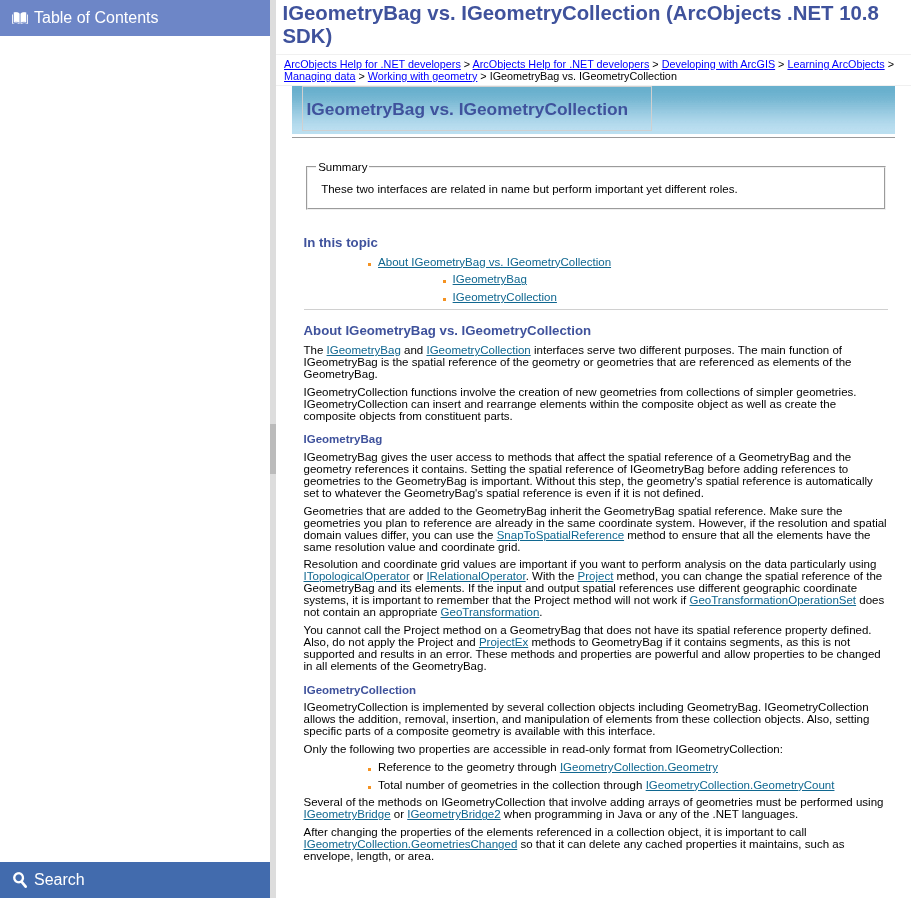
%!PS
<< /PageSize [911 898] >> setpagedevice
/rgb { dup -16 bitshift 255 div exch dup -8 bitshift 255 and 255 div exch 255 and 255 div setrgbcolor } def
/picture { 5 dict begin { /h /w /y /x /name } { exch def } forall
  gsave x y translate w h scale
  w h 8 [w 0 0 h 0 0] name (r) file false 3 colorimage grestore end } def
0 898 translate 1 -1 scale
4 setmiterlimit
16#FFFFFF rgb
0 0 911 898 rectfill
(pic1.raw) 0 0 270 898 picture
16#DDDDDD rgb
270 0 6 898 rectfill
16#BBBBBB rgb
270 424 6 50 rectfill
(pic2.raw) 276 5 635 857 picture
showpage
